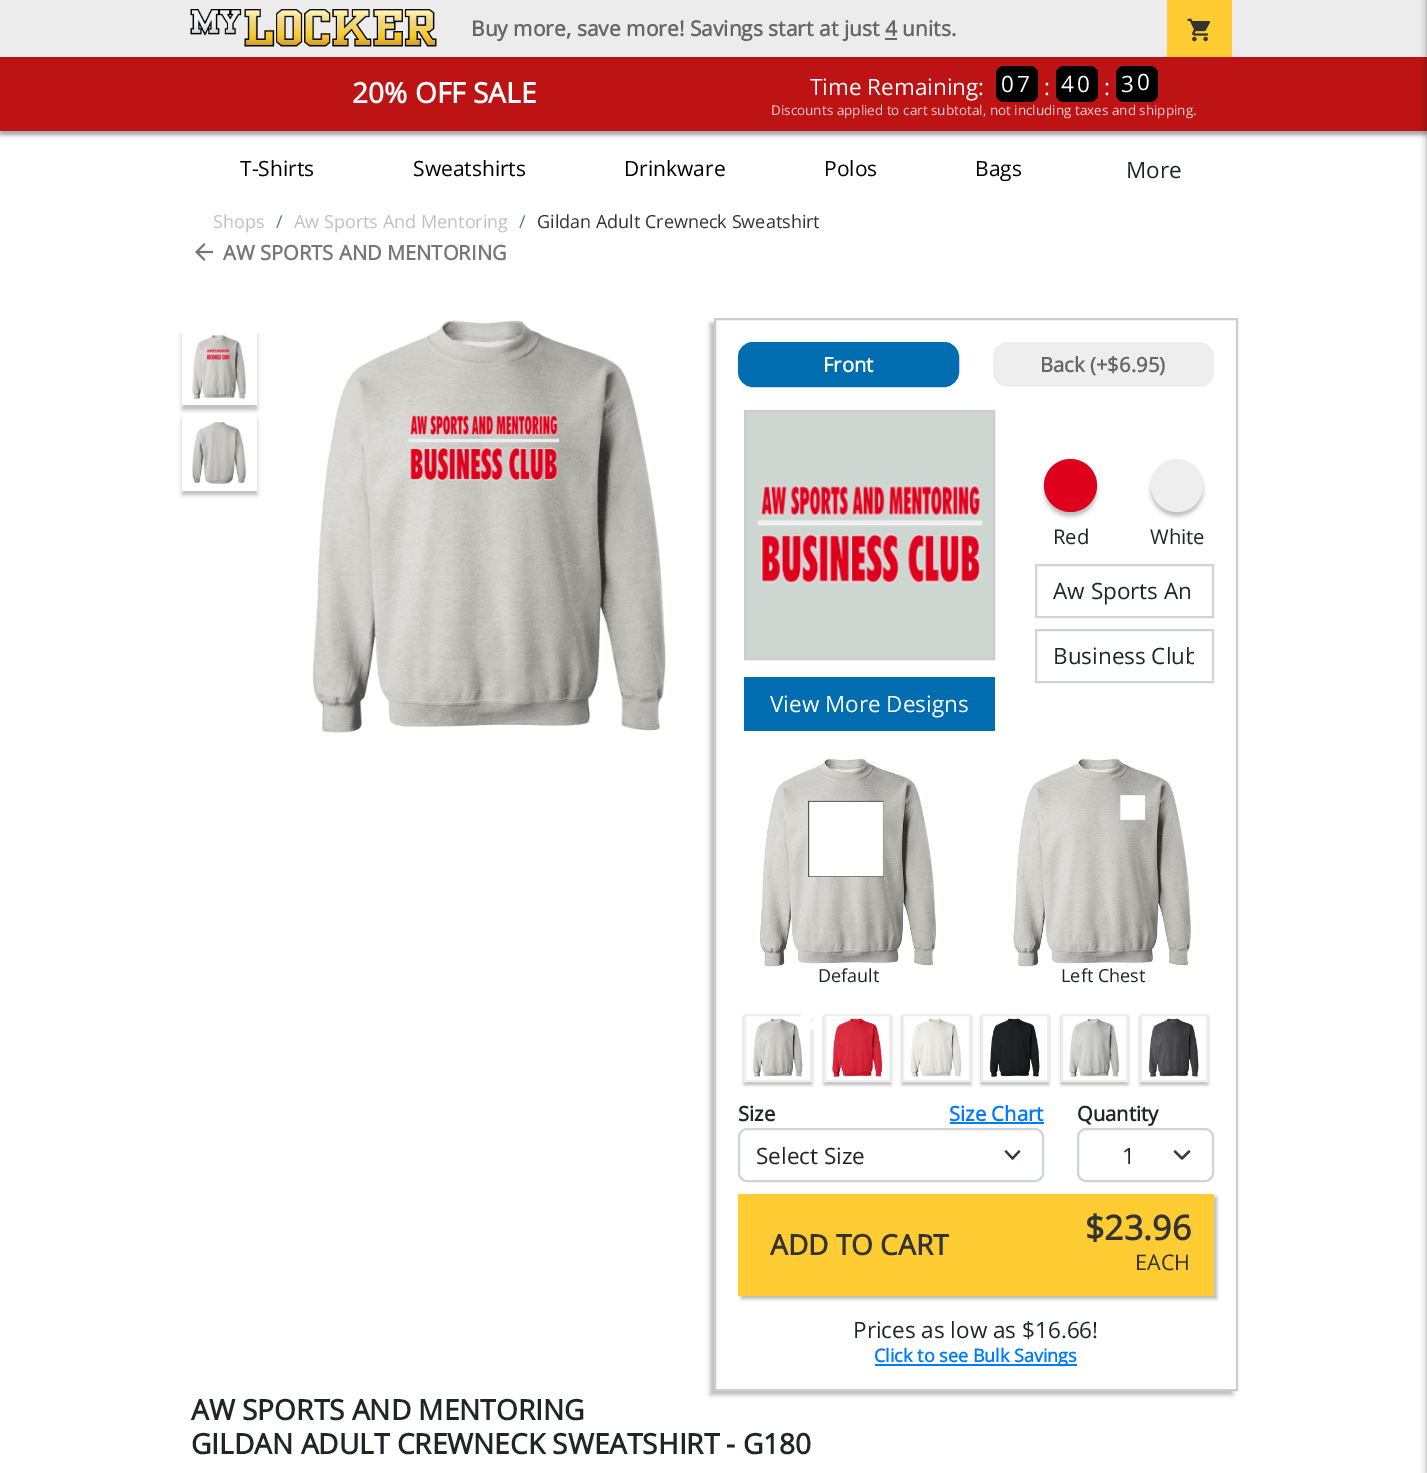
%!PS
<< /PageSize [1427 1473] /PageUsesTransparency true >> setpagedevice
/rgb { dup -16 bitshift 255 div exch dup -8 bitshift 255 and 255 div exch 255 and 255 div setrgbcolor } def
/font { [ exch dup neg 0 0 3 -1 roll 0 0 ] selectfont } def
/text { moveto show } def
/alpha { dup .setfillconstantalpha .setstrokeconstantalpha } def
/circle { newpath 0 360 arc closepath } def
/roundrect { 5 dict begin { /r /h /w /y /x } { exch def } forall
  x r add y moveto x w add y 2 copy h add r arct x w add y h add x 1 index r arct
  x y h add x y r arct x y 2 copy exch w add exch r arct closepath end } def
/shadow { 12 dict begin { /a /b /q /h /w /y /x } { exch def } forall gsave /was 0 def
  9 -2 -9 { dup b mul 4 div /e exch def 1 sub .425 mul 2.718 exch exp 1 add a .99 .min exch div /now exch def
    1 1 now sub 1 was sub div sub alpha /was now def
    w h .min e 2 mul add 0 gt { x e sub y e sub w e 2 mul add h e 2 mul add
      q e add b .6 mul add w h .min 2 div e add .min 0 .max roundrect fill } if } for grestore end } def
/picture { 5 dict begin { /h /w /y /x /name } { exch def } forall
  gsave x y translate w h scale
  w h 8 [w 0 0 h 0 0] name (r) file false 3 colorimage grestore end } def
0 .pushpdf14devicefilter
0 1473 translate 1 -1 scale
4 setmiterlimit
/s1 { /OpenSans-Bold 21 font 16#666666 rgb } def
/s2 { /OpenSans-Bold 28.1 font 16#FFFFFF rgb } def
/s3 { /OpenSans-Regular 22.5 font 16#FFFFFF rgb } def
/s4 { /OpenSans-Regular 13.5 font 16#F2D0D0 rgb } def
/s5 { /OpenSans-Regular 21 font 16#000000 rgb } def
/s6 { /OpenSans-Regular 22.5 font 16#212529 rgb } def
/s7 { /OpenSans-Regular 18 font 16#C0C0C0 rgb } def
/s8 { /OpenSans-Regular 18 font 16#6C757D rgb } def
/s9 { /OpenSans-Regular 18 font 16#333333 rgb } def
/s10 { /OpenSans-Bold 20.25 font 16#777777 rgb } def
/s11 { /OpenSans-Bold 20.25 font 16#FFFFFF rgb } def
/s12 { /OpenSans-Bold 20.25 font 16#666666 rgb } def
/s13 { /OpenSans-Regular 20.25 font 16#212529 rgb } def
/s14 { /OpenSans-Regular 18 font 16#212529 rgb } def
/s15 { /OpenSans-Bold 20.25 font 16#212529 rgb } def
/s16 { /OpenSans-Bold 20.25 font 16#007BFF rgb } def
/s17 { /OpenSans-Bold 28.1 font 16#333333 rgb } def
/s18 { /OpenSans-Bold 34 font 16#333333 rgb } def
/s19 { /OpenSans-Regular 21.5 font 16#333333 rgb } def
/s20 { /OpenSans-Bold 18 font 16#007BFF rgb } def
/s21 { /OpenSans-Bold 28.1 font 16#212529 rgb } def
16#FFFFFF rgb
0 0 1427 1473 rectfill
16#ECECEC rgb
0 0 1427 57 rectfill
(pic1.raw) 190 9 247 38 picture
s1
(Buy more, save more! Savings start at just 4 units.) 471 36 text
885 38 12 2 rectfill
16#000000 rgb
0 62 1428 73 0 2 0.35 shadow
16#FFCC33 rgb
1167 0 65 57 rectfill
(pic2.raw) 1187 18 24 24 picture
16#BD1314 rgb
0 57 1427 74 rectfill
s2
(20% OFF SALE) 352 103 text
s3
(Time Remaining:) 810 95 text
16#000000 rgb
996 66 42 36 8 roundrect fill
16#FFFFFF rgb
1001 92 moveto 8 0 (0) ashow
1017 92 moveto 8 0 (7) ashow
(:) 1044 95 text
16#000000 rgb
1056 66 42 36 8 roundrect fill
16#FFFFFF rgb
1061 92 moveto 8 0 (4) ashow
1077 92 moveto 8 0 (0) ashow
(:) 1104 95 text
16#000000 rgb
1116 66 42 36 8 roundrect fill
16#FFFFFF rgb
1121 92 moveto 8 0 (3) ashow
1137 90 moveto 8 0 (0) ashow
s4
(Discounts applied to cart subtotal, not including taxes and shipping.) 771 115 text
16#000000 rgb
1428 0 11 1473 0 4 0.5 shadow
s5
(T-Shirts) 240 176 text
(Sweatshirts) 413 176 text
(Drinkware) 624 176 text
(Polos) 824 176 text
(Bags) 975 176 text
s6
(More) 1126 178 text
s7
(Shops) 213 228 text
s8
(/) 276 228 text
s7
(Aw Sports And Mentoring) 294 228 text
s8
(/) 519 228 text
s9
(Gildan Adult Crewneck Sweatshirt) 537 228 text
(pic3.raw) 195 243 18 18 picture
s10
(AW SPORTS AND MENTORING) 223 260 text
gsave
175 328 moveto 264 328 lineto 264 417 lineto 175 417 lineto closepath 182 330 moveto 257 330 lineto 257 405 lineto 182 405 lineto closepath eoclip newpath
16#000000 rgb
182 335 75 75 0 2 0.25 shadow
grestore
(pic4.raw) 192 334 55 65 picture
gsave
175 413 moveto 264 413 lineto 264 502 lineto 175 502 lineto closepath 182 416 moveto 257 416 lineto 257 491 lineto 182 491 lineto closepath eoclip newpath
16#000000 rgb
182 420 75 75 0 2 0.25 shadow
grestore
(pic5.raw) 192 421 55 63 picture
(pic6.raw) 312 320 354 413 picture
gsave
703 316 moveto 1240 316 lineto 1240 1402 lineto 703 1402 lineto closepath 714 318 moveto 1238 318 lineto 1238 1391 lineto 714 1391 lineto closepath eoclip newpath
16#000000 rgb
710 323 523 1072 0 2 0.25 shadow
grestore
16#CCCCCC rgb
2 setlinewidth
715 319 522 1071 rectstroke
16#006DB0 rgb
740.5 344.5 216 40 12.5 roundrect gsave fill grestore
5 setlinewidth
stroke
s11
(Front) 823 372 text
16#EEEEEE rgb
993 342 221 45 15 roundrect fill
s12
(Back \(+$6.95\)) 1040 372 text
16#000000 rgb
1044 464 53 52 26 2 0.25 shadow
16#DE001C rgb
1070.5 485.5 26.5 circle fill
s13
(Red) 1053 544 text
16#000000 rgb
1151 464 52 52 26 2 0.25 shadow
16#EEEEEE rgb
1151 459 52 53 26 roundrect fill
s13
(White) 1150 544 text
16#CED4DA rgb
2 setlinewidth
1036 565 177 52 rectstroke
s6
(Aw Sports An) 1053 599 text
16#CED4DA rgb
1036 630 177 52 rectstroke
gsave
1053 639 141 33 rectclip
s6
(Business Club) 1053 664 text
grestore
16#CED6D2 rgb
745 411 moveto 994 411 lineto 994 659 lineto 745 659 lineto closepath gsave fill grestore
16#CCCCCC rgb
stroke
(pic7.raw) 757 485 226 99 picture
16#006DB0 rgb
744 677 251 54 rectfill
s3
(View More Designs) 770 712 text
(pic8.raw) 760 758 176 209 picture
s14
(Default) 818 982 text
(pic9.raw) 1013 758 178 209 picture
(Left Chest) 1061 982 text
gsave
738 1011 moveto 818 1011 lineto 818 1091 lineto 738 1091 lineto closepath 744 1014 moveto 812 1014 lineto 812 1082 lineto 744 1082 lineto closepath eoclip newpath
16#000000 rgb
744 1017 68 68 0 1.5 0.25 shadow
grestore
16#EEEEEE rgb
745 1015 66 66 rectstroke
(pic10.raw) 752 1018 51 59 picture
16#FFFFFF rgb
809 1024 moveto 819.5 1014 lineto 818 1012.5 lineto 809 1021 lineto 805 1017 lineto 803.5 1018.5 lineto closepath 803.5 1010.5 moveto 814 1000 830 1016 819.5 1026.5 curveto 809 1037 793 1021 803.5 1010.5 curveto closepath fill
gsave
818 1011 moveto 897 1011 lineto 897 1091 lineto 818 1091 lineto closepath 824 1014 moveto 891 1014 lineto 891 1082 lineto 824 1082 lineto closepath eoclip newpath
16#000000 rgb
824 1017 67 68 0 1.5 0.25 shadow
grestore
16#EEEEEE rgb
825 1015 65 66 rectstroke
(pic11.raw) 832 1018 51 59 picture
gsave
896 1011 moveto 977 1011 lineto 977 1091 lineto 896 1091 lineto closepath 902 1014 moveto 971 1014 lineto 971 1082 lineto 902 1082 lineto closepath eoclip newpath
16#000000 rgb
902 1017 69 68 0 1.5 0.25 shadow
grestore
903 1015 67 66 rectstroke
(pic12.raw) 910 1018 52 59 picture
gsave
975 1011 moveto 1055 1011 lineto 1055 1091 lineto 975 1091 lineto closepath 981 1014 moveto 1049 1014 lineto 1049 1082 lineto 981 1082 lineto closepath eoclip newpath
16#000000 rgb
981 1017 68 68 0 1.5 0.25 shadow
grestore
982 1015 66 66 rectstroke
(pic13.raw) 989 1018 51 59 picture
gsave
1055 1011 moveto 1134 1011 lineto 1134 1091 lineto 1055 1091 lineto closepath 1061 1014 moveto 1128 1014 lineto 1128 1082 lineto 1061 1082 lineto closepath eoclip newpath
16#000000 rgb
1061 1017 67 68 0 1.5 0.25 shadow
grestore
1062 1015 65 66 rectstroke
(pic14.raw) 1069 1018 51 59 picture
gsave
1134 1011 moveto 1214 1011 lineto 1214 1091 lineto 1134 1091 lineto closepath 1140 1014 moveto 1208 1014 lineto 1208 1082 lineto 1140 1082 lineto closepath eoclip newpath
16#000000 rgb
1140 1017 68 68 0 1.5 0.25 shadow
grestore
1141 1015 66 66 rectstroke
(pic15.raw) 1148 1018 51 59 picture
s15
(Size) 738 1121 text
s16
(Size Chart) 949 1121 text
950 1122 94 2 rectfill
16#343A40 rgb
2.2 setlinewidth
1 setlinecap
1 setlinejoin
1006 1151.5 moveto 1012.5 1158.5 lineto 1019 1151.5 lineto stroke
16#CED4DA rgb
2 setlinewidth
0 setlinecap
0 setlinejoin
739 1129 304 52 8 roundrect stroke
s6
(Select Size) 756 1164 text
s15
(Quantity) 1077 1121 text
16#343A40 rgb
2.2 setlinewidth
1 setlinecap
1 setlinejoin
1175 1151.5 moveto 1182 1158.5 lineto 1189 1151.5 lineto stroke
16#CED4DA rgb
2 setlinewidth
0 setlinecap
0 setlinejoin
1078 1129 135 52 8 roundrect stroke
s6
(1) 1122 1164 text
16#000000 rgb
741 1197 476 102 0 1.5 0.25 shadow
16#FFCC33 rgb
738 1194 476 102 rectfill
s17
(ADD TO CART) 770 1255 text
s18
($23.96) 1085 1240 text
s19
(EACH) 1135 1270 text
s6
(Prices as low as $16.66!) 853 1338 text
16#007BFF rgb
875 1364 202 2 rectfill
s20
(Click to see Bulk Savings) 874 1362 text
s21
(AW SPORTS AND MENTORING) 191 1420 text
(GILDAN ADULT CREWNECK SWEATSHIRT - G180) 191 1454 text
.poppdf14devicefilter showpage
